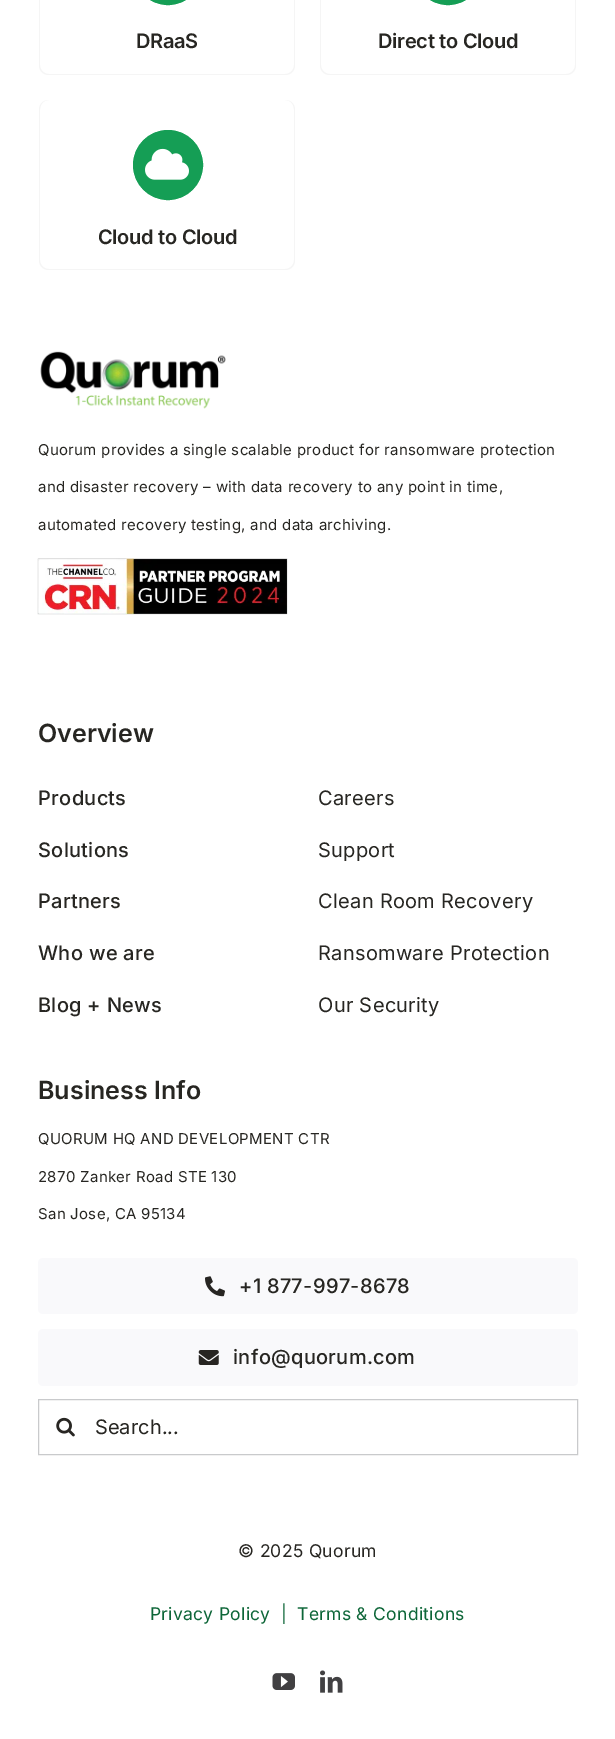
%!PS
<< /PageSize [615 1739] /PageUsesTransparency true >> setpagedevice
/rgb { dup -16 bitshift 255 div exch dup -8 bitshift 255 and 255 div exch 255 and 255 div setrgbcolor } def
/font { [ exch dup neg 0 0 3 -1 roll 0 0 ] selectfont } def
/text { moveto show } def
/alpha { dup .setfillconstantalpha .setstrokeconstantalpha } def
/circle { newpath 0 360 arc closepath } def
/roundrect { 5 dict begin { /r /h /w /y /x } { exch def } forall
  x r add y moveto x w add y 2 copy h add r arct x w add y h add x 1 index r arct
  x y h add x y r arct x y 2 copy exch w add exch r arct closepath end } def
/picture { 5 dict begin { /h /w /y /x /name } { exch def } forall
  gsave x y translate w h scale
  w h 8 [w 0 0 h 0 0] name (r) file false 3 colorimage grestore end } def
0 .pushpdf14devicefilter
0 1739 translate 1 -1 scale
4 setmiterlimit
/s1 { /Inter-SemiBold 25 font 16#272622 rgb } def
/s2 { /Inter-Regular 20 font 16#272622 rgb } def
16#FFFFFF rgb
0 0 615 1739 rectfill
0.04 alpha
16#000000 rgb
49 -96 moveto 285 -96 lineto 291 -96 295 -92 295 -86 curveto 295 65 lineto 295 71 291 75 285 75 curveto 49 75 lineto 43 75 39 71 39 65 curveto 39 -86 lineto 39 -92 43 -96 49 -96 curveto closepath 49 -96 moveto 285 -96 lineto 290 -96 294 -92 294 -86 curveto 294 65 lineto 294 70 290 74 285 74 curveto 49 74 lineto 44 74 40 70 40 65 curveto 40 -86 lineto 40 -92 44 -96 49 -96 curveto closepath eofill
1 alpha
16#159E55 rgb
133.5 -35.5 69 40 34.5 roundrect gsave fill grestore
stroke
/Inter-SemiBold 20 font
16#272622 rgb
136 48 moveto -0.25 0 (DRaaS) ashow
0.04 alpha
16#000000 rgb
330 -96 moveto 566 -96 lineto 572 -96 576 -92 576 -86 curveto 576 65 lineto 576 71 572 75 566 75 curveto 330 75 lineto 324 75 320 71 320 65 curveto 320 -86 lineto 320 -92 324 -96 330 -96 curveto closepath 330 -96 moveto 566 -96 lineto 571 -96 575 -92 575 -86 curveto 575 65 lineto 575 70 571 74 566 74 curveto 330 74 lineto 325 74 321 70 321 65 curveto 321 -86 lineto 321 -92 325 -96 330 -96 curveto closepath eofill
1 alpha
16#159E55 rgb
413.5 -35.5 69 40 34.5 roundrect gsave fill grestore
stroke
16#272622 rgb
378 48 moveto -0.25 0 (Direct to Cloud) ashow
0.04 alpha
16#000000 rgb
49 100 moveto 285 100 lineto 291 100 295 104 295 110 curveto 295 260 lineto 295 266 291 270 285 270 curveto 49 270 lineto 43 270 39 266 39 260 curveto 39 110 lineto 39 104 43 100 49 100 curveto closepath 49 100 moveto 285 100 lineto 290 100 294 104 294 110 curveto 294 260 lineto 294 265 290 269 285 269 curveto 49 269 lineto 44 269 40 265 40 260 curveto 40 110 lineto 40 104 44 100 49 100 curveto closepath eofill
1 alpha
16#159E55 rgb
168 165 34.5 circle gsave fill grestore
stroke
(pic1.raw) 145 148 44 32 picture
16#272622 rgb
98 244 moveto -0.25 0 (Cloud to Cloud) ashow
(pic2.raw) 40 351 186 58 picture
/Inter-Regular 15 font
38 455 moveto 0.3 0 (Quorum provides a single scalable product for ransomware protection) ashow
38 492 moveto 0.3 0 (and disaster recovery – with data recovery to any point in time,) ashow
38 530 moveto 0.3 0 (automated recovery testing, and data archiving.) ashow
(pic3.raw) 37 558 251 57 picture
s1
(Overview) 38 742 text
/Inter-Medium 20 font
38 805 moveto 0.3 0 (Products) ashow
38 857 moveto 0.3 0 (Solutions) ashow
38 908 moveto 0.3 0 (Partners) ashow
38 960 moveto 0.3 0 (Who we are) ashow
38 1012 moveto 0.3 0 (Blog + News) ashow
/Inter-Regular 20 font
318 805 moveto 0.3 0 (Careers) ashow
318 857 moveto 0.3 0 (Support) ashow
318 908 moveto 0.3 0 (Clean Room Recovery) ashow
318 960 moveto 0.3 0 (Ransomware Protection) ashow
318 1012 moveto 0.3 0 (Our Security) ashow
s1
(Business Info) 38 1099 text
/Inter-Regular 15 font
38 1144 moveto 0.3 0 (QUORUM HQ AND DEVELOPMENT CTR) ashow
38 1182 moveto 0.3 0 (2870 Zanker Road STE 130) ashow
38 1219 moveto 0.3 0 (San Jose, CA 95134) ashow
16#F9F9FB rgb
38 1258 540 56 5 roundrect fill
(pic4.raw) 205 1276 20 21 picture
/Inter-Medium 20 font
16#272622 rgb
239 1293 moveto 0.3 0 (+1 877-997-8678) ashow
16#F9F9FB rgb
38 1329 540 57 5 roundrect fill
(pic5.raw) 198 1350 21 15 picture
16#272622 rgb
233 1364 moveto 0.3 0 (info@quorum.com) ashow
16#C9CACC rgb
38.5 1399.5 539 55 rectstroke
(pic6.raw) 56 1417 19 20 picture
s2
(Search...) 95 1434 text
/Inter-Regular 17.5 font
238 1557 moveto 0.3 0 (© 2025 Quorum) ashow
16#0D6638 rgb
150 1620 moveto 0.3 0 (Privacy Policy) ashow
281 1620 moveto 0.3 0 (|) ashow
297 1620 moveto 0.3 0 (Terms & Conditions) ashow
(pic7.raw) 272 1673 23 17 picture
(pic8.raw) 320 1670 23 23 picture
.poppdf14devicefilter showpage
